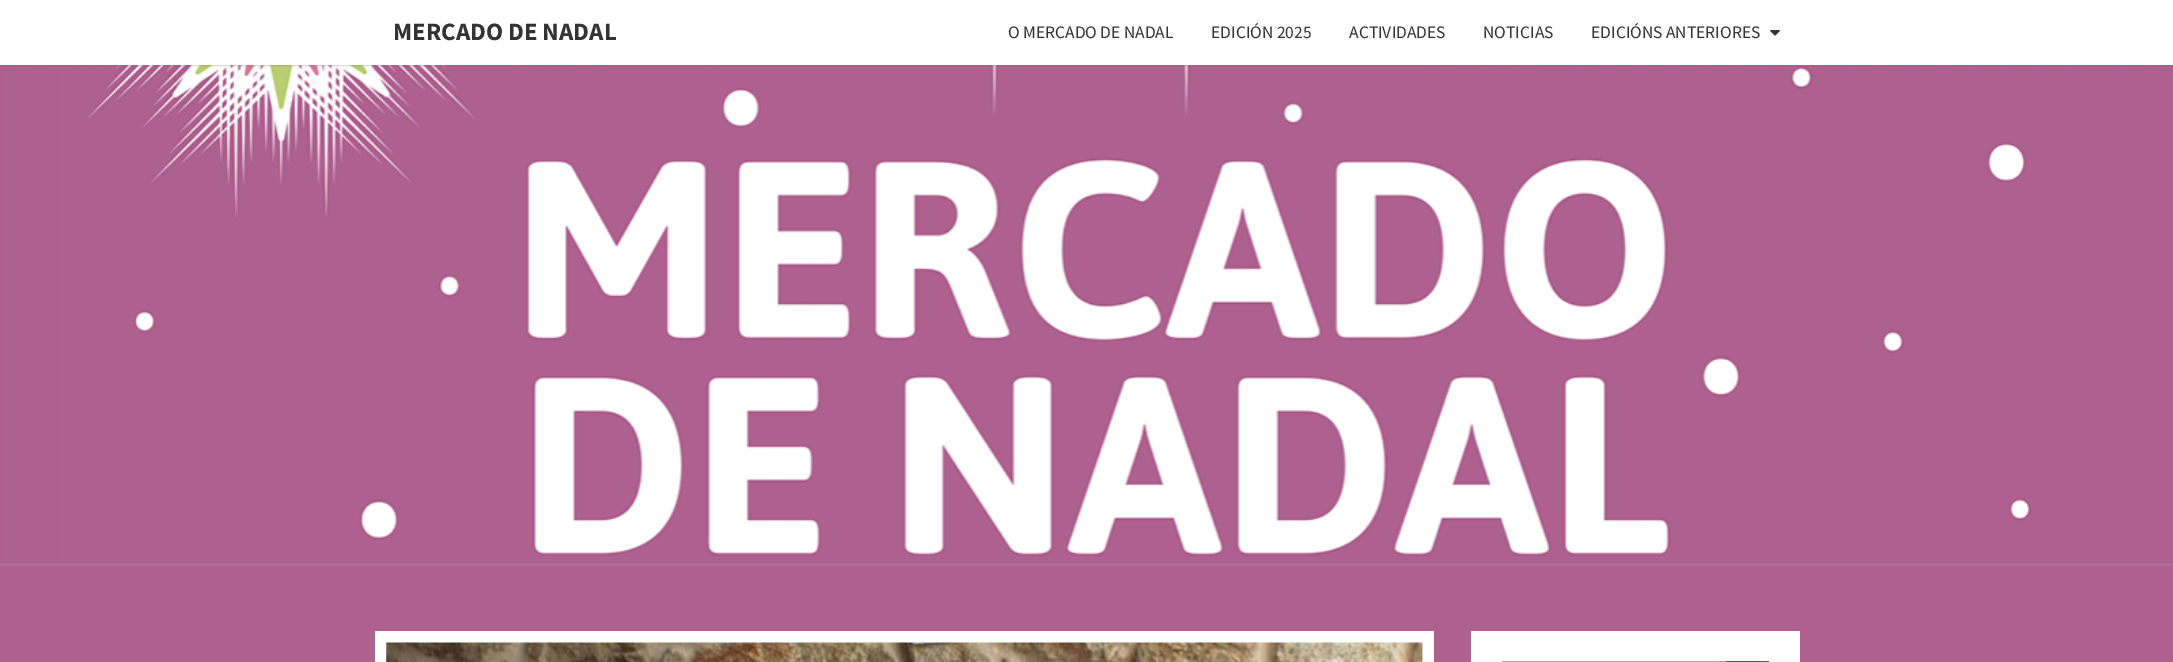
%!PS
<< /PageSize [2173 662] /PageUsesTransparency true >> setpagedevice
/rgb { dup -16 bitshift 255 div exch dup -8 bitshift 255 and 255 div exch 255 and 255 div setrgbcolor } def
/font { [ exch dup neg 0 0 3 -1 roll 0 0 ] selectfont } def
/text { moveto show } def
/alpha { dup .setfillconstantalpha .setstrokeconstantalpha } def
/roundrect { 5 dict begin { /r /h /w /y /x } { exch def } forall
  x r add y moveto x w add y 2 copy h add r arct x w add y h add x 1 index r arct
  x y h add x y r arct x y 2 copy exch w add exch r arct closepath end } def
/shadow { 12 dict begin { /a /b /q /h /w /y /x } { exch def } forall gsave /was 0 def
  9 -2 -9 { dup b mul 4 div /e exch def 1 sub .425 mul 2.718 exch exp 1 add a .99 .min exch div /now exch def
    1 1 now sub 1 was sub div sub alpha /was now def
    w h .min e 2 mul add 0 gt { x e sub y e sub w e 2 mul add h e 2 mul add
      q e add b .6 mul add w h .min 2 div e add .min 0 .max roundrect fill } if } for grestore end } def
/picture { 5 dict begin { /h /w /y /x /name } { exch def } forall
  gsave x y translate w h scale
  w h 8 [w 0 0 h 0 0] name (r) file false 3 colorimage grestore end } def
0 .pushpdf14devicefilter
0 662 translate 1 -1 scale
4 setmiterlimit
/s1 { /SourceSansPro-Bold 25 font 16#333333 rgb } def
/s2 { /SourceSansPro-Regular 17.5 font 16#333333 rgb } def
16#AE618F rgb
0 0 2173 662 rectfill
gsave
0 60 moveto 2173 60 lineto 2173 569 lineto 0 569 lineto closepath 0 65 moveto 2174 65 lineto 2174 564 lineto 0 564 lineto closepath eoclip newpath
16#B6B6B6 rgb
-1 64 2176 501 0 1 0.3 shadow
grestore
(pic2.raw) 0 65 2173 499 picture
16#646464 rgb
0 1 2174 65 0 0.5 0.2 shadow
16#FFFFFF rgb
0 0 2173 65 rectfill
s1
(MERCADO DE NADAL) 393 40 text
s2
(O MERCADO DE NADAL) 1008 38 text
(EDICIÓN 2025) 1211 38 text
(ACTIVIDADES) 1349 38 text
(NOTICIAS) 1483 38 text
(EDICIÓNS ANTERIORES) 1591 38 text
(pic1.raw) 1770 30 10 6 picture
16#FFFFFF rgb
375 631 1059 31 rectfill
(pic3.raw) 386 642 1037 20 picture
1471 631 329 31 rectfill
16#AAA1A8 rgb
1503.5 661.5 moveto 1725.5 661.5 lineto 1725.5 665.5 lineto 1503.5 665.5 lineto 1502.5 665.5 1501.5 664.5 1501.5 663.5 curveto 1501.5 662.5 1502.5 661.5 1503.5 661.5 curveto closepath stroke
16#455A64 rgb
1726.5 661.5 moveto 1767.5 661.5 lineto 1768.5 661.5 1769.5 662.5 1769.5 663.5 curveto 1769.5 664.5 1768.5 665.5 1767.5 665.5 curveto 1726.5 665.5 lineto closepath stroke
.poppdf14devicefilter showpage
